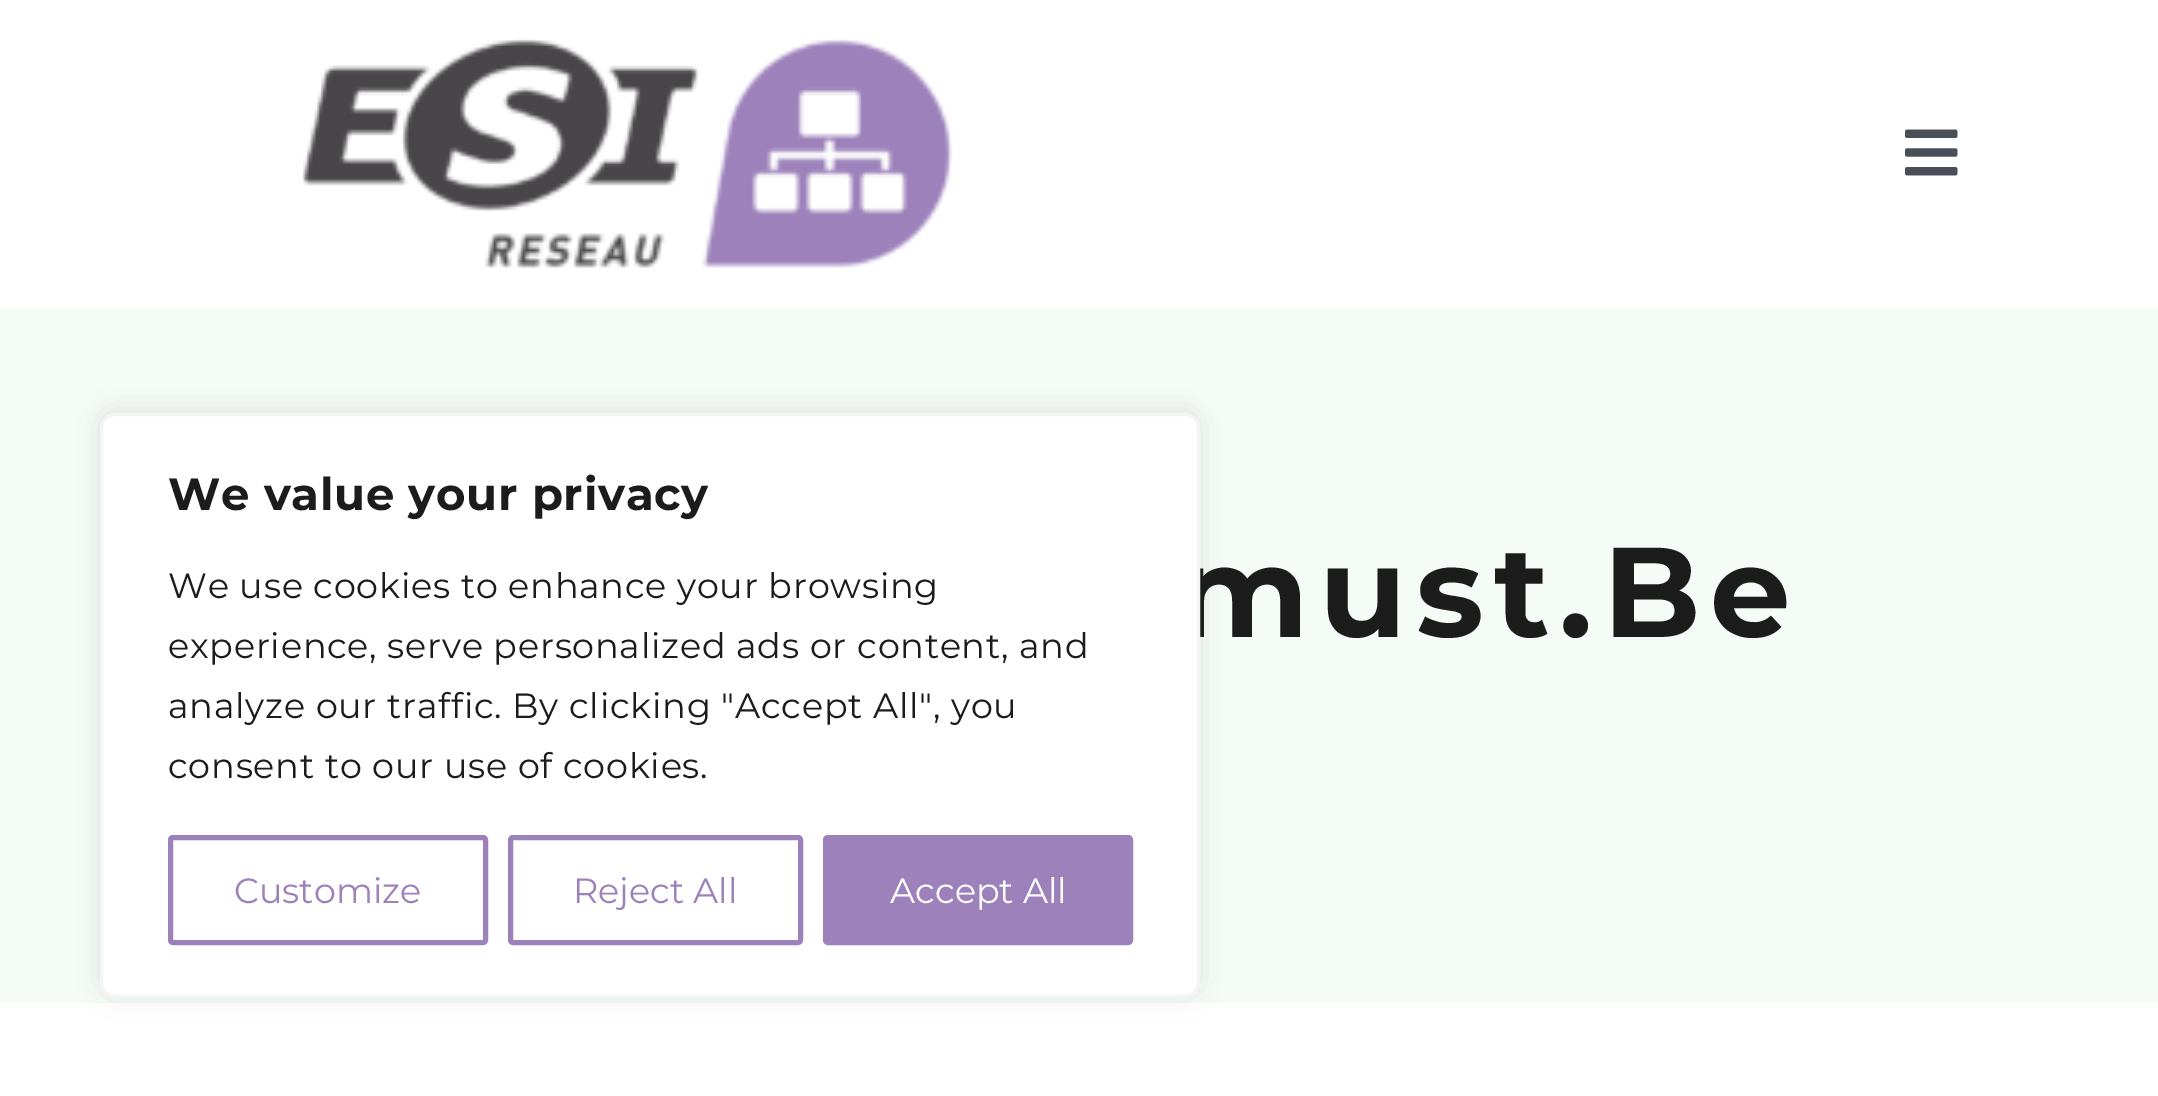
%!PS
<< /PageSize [2158 1096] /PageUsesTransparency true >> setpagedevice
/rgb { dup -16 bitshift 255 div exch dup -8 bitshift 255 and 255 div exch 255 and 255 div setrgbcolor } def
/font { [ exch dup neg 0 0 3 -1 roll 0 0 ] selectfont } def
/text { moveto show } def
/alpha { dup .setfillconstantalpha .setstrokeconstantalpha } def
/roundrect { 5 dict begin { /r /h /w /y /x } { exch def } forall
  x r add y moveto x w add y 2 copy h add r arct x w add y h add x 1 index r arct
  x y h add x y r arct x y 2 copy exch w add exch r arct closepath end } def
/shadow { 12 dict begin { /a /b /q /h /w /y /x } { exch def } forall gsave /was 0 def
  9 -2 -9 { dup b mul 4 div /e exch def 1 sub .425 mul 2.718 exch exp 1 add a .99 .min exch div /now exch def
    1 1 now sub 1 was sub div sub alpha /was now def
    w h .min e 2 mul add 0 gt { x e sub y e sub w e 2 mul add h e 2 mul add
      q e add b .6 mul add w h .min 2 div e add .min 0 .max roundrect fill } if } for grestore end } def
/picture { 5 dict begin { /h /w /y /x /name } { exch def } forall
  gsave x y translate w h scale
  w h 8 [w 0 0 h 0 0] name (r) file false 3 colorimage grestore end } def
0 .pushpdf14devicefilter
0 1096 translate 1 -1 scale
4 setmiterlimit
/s1 { /Montserrat-Regular 35 font 16#9C81BA rgb } def
/s2 { /Montserrat-Regular 35 font 16#FFFFFF rgb } def
16#FFFFFF rgb
0 0 2158 1096 rectfill
16#F5FBF7 rgb
0 308 2158 695 rectfill
16#ACABAB rgb
100 410 1100 585 15 12.5 0.3 shadow
/Montserrat-Bold 127.5 font
16#1C1C1C rgb
1175 637 moveto 10 0 (must.Be) ashow
16#FFFFFF rgb
101.5 414.5 1097 582 13.5 roundrect gsave fill grestore
16#F4F4F4 rgb
3 setlinewidth
stroke
/Montserrat-Bold 45 font
16#1C1C1C rgb
168 510 moveto 0.75 0 (We value your privacy) ashow
/Montserrat-Regular 35 font
168 598 moveto 0.75 0 (We use cookies to enhance your browsing) ashow
168 658 moveto 0.75 0 (experience, serve personalized ads or content, and) ashow
168 718 moveto 0.75 0 (analyze our traffic. By clicking "Accept All", you) ashow
168 778 moveto 0.75 0 (consent to our use of cookies.) ashow
16#9C81BA rgb
5 setlinewidth
170.5 837.5 315 105 2.5 roundrect stroke
(Customize) 234 903 text
510.5 837.5 290 105 2.5 roundrect stroke
(Reject All) 573 903 text
825.5 837.5 305 105 2.5 roundrect gsave fill grestore
stroke
s2
(Accept All) 890 903 text
(pic1.raw) 302 38 651 230 picture
(pic2.raw) 1905 129 53 47 picture
.poppdf14devicefilter showpage
